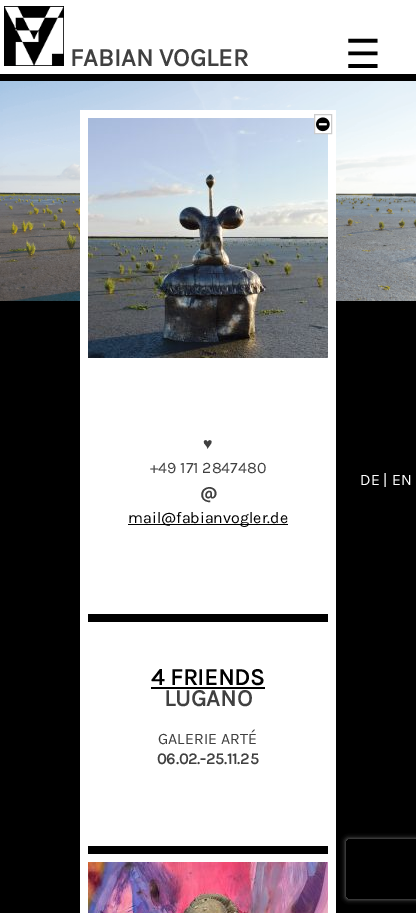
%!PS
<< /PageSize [416 913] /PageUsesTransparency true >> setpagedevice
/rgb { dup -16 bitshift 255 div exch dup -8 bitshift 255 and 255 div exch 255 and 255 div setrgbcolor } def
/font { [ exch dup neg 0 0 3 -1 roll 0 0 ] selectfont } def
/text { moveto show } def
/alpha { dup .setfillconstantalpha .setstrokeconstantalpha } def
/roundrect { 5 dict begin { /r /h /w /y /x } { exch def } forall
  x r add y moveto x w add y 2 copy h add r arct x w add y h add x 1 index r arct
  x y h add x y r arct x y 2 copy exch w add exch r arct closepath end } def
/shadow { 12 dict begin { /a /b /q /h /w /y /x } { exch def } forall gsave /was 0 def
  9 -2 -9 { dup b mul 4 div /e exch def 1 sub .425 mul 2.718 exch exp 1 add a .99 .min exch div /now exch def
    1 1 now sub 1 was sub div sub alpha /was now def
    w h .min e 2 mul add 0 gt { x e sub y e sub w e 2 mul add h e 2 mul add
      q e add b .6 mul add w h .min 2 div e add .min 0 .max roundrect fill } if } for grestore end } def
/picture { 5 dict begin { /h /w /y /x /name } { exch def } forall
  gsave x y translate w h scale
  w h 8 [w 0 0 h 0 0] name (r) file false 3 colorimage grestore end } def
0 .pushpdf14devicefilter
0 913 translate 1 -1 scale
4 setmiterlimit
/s1 { /Karla-Bold 25.5 font 16#404040 rgb } def
/s2 { /DejaVuSans-Regular 40 font 16#000000 rgb } def
/s3 { /LiberationSans-Regular 16 font 16#404040 rgb } def
/s4 { /Karla-Regular 16 font 16#404040 rgb } def
/s5 { /Karla-Bold 18 font 16#404040 rgb } def
/s6 { /Karla-Regular 16 font 16#000000 rgb } def
/s7 { /Karla-Bold 24 font 16#000000 rgb } def
/s8 { /Karla-Bold 24 font 16#404040 rgb } def
/s9 { /Karla-Bold 16 font 16#404040 rgb } def
/s10 { /Karla-Regular 16 font 16#FFFFFF rgb } def
16#000000 rgb
0 0 416 913 rectfill
16#FFFFFF rgb
0 0 416 74 rectfill
(pic1.raw) 4 6 60 60 picture
s1
(FABIAN VOGLER) 70 66 text
s2
(☰) 345 68 text
(pic2.raw) 0 81 416 220 picture
16#FFFFFF rgb
80 110 256 803 rectfill
(pic4.raw) 88 118 240 240 picture
315 118 13 15 rectfill
16#CCCCCC rgb
314.5 114.5 17 19 rectstroke
(pic3.raw) 316 117 14 15 picture
s3
(♥) 203 449 text
s4
(+49 171 2847480) 150 473 text
s5
(@) 200 499 text
16#000000 rgb
128 524 160 1 rectfill
s6
(mail@fabianvogler.de) 128 523 text
88 614 240 8 rectfill
88 846 240 8 rectfill
s7
(4 FRIENDS) 151 685 text
151 687 114 2 rectfill
s8
(LUGANO) 164 706 text
s4
(GALERIE ARTÉ) 158 744 text
s9
(06.02.-25.11.25) 157 764 text
(pic5.raw) 88 862 240 51 picture
s10
(DE | EN) 360 485 text
gsave
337 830 moveto 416 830 lineto 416 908 lineto 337 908 lineto closepath 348 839 moveto 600 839 lineto 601 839 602 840 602 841 curveto 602 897 lineto 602 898 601 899 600 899 curveto 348 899 lineto 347 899 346 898 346 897 curveto 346 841 lineto 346 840 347 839 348 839 curveto closepath eoclip newpath
16#808080 rgb
346 839 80 60 2 2.5 1 shadow
grestore
.poppdf14devicefilter showpage
